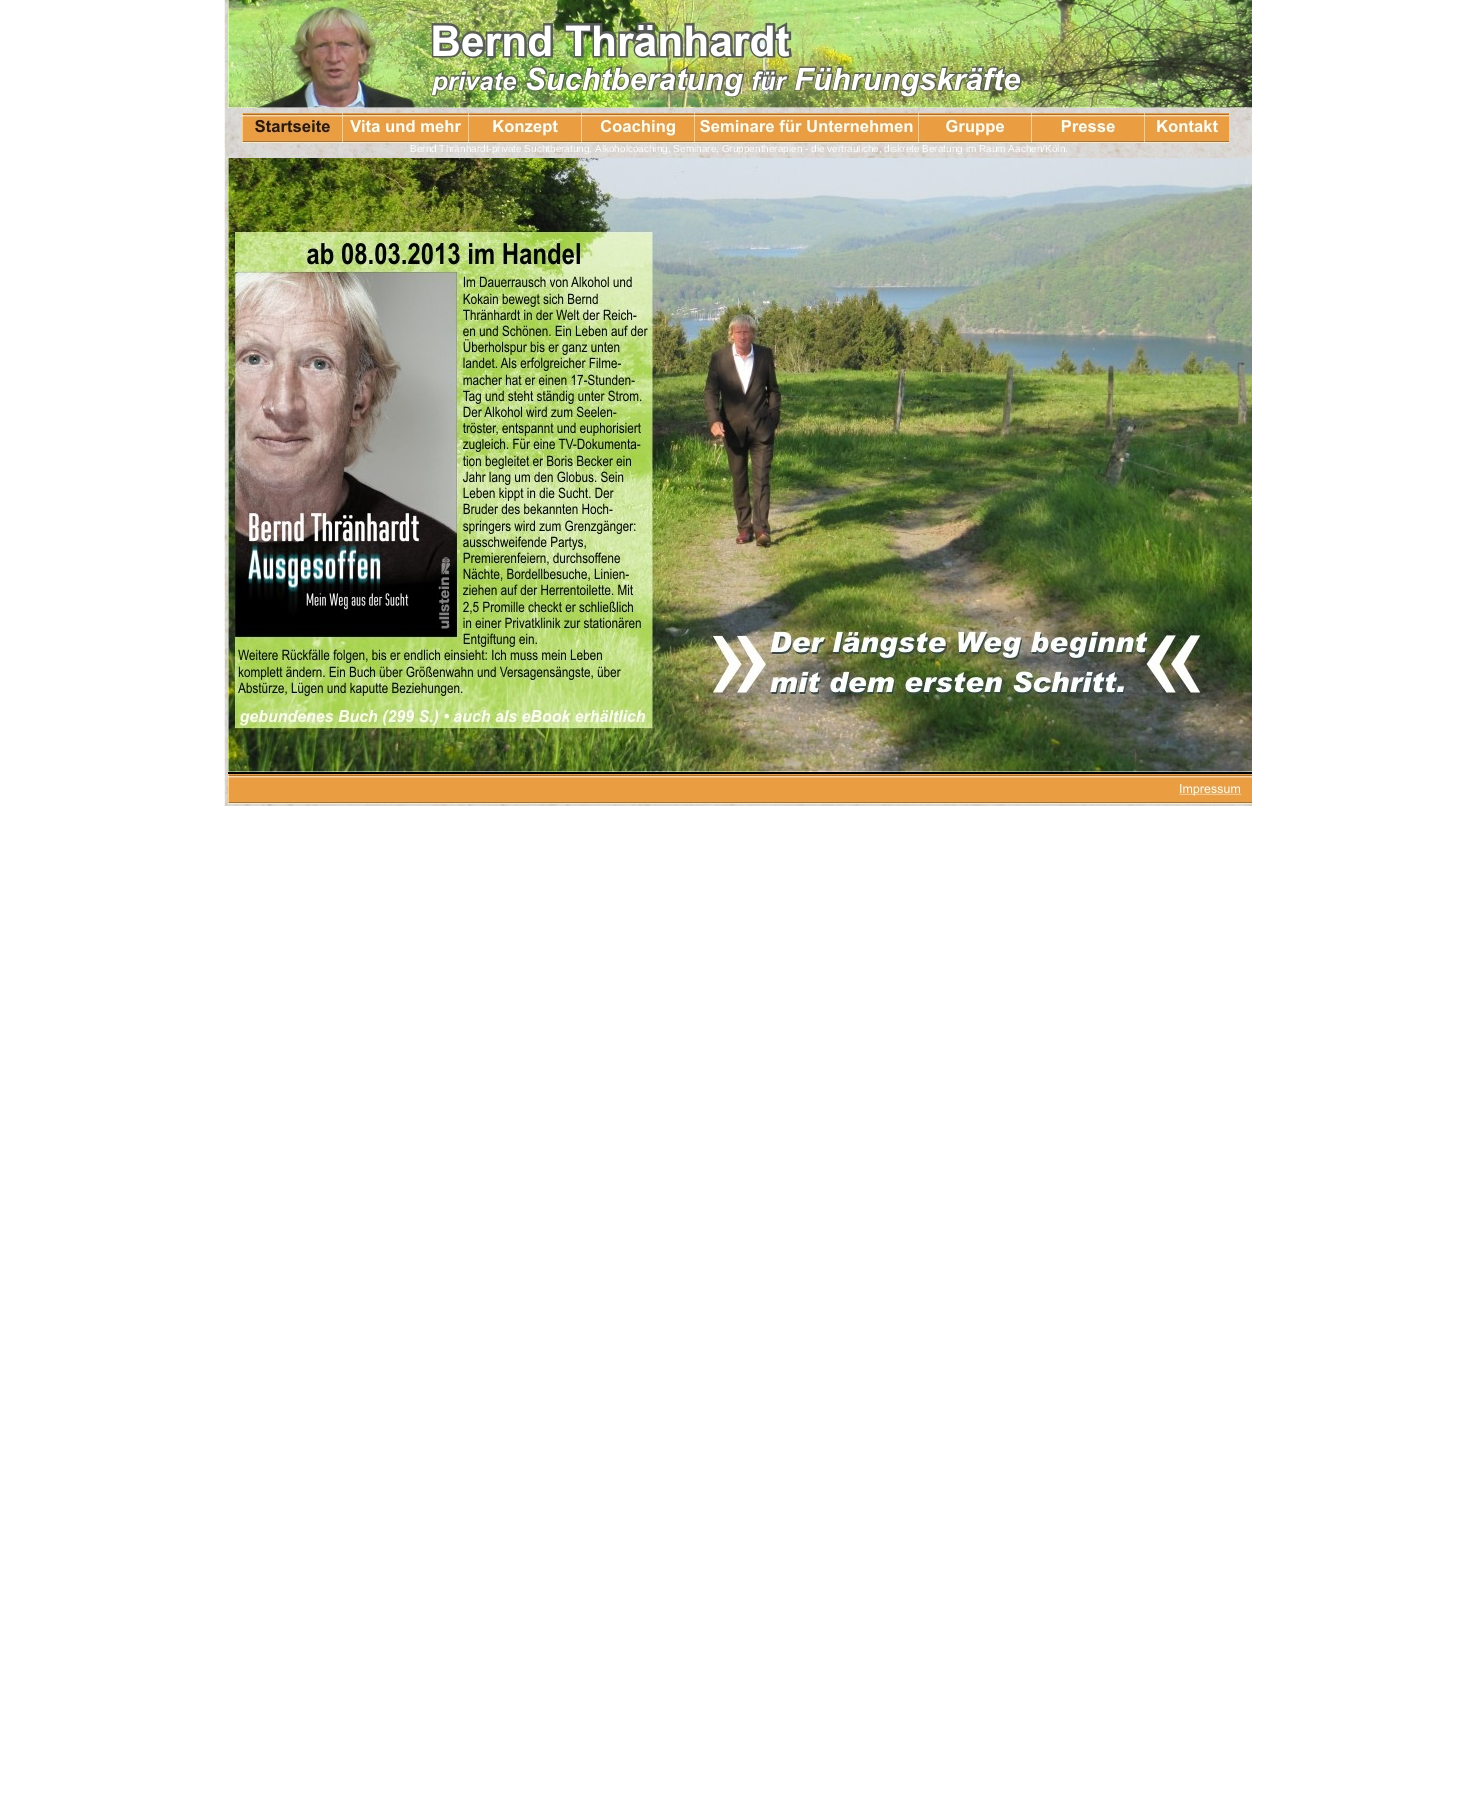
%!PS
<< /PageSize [1475 1804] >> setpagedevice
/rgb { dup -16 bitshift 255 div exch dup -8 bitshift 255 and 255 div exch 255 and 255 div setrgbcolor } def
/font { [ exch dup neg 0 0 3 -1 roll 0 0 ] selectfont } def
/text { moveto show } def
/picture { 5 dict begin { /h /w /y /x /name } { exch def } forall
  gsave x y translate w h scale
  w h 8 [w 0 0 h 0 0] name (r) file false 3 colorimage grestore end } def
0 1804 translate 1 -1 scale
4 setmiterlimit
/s1 { /LiberationSans-Regular 10 font 16#FFFFFF rgb } def
16#FFFFFF rgb
0 0 1475 1804 rectfill
(pic1.raw) 224 0 1028 806 picture
(pic2.raw) 228 0 1024 108 picture
(pic3.raw) 242 113 100 30 picture
(pic4.raw) 342 113 126 30 picture
(pic5.raw) 468 113 113 30 picture
(pic6.raw) 581 113 113 30 picture
(pic7.raw) 694 113 224 30 picture
(pic8.raw) 918 113 113 30 picture
(pic9.raw) 1031 113 113 30 picture
(pic10.raw) 1144 113 85 30 picture
s1
(Bernd Thränhardt-private Suchtberatung, Alkoholcoaching, Seminare, Gruppentherapien - die vertrauliche, diskrete Beratung im Raum Aachen/Köln.) 410 152 text
16#000000 rgb
228 772 1024 2 rectfill
(pic11.raw) 228 158 1024 614 picture
(pic12.raw) 228 774 1024 30 picture
showpage
